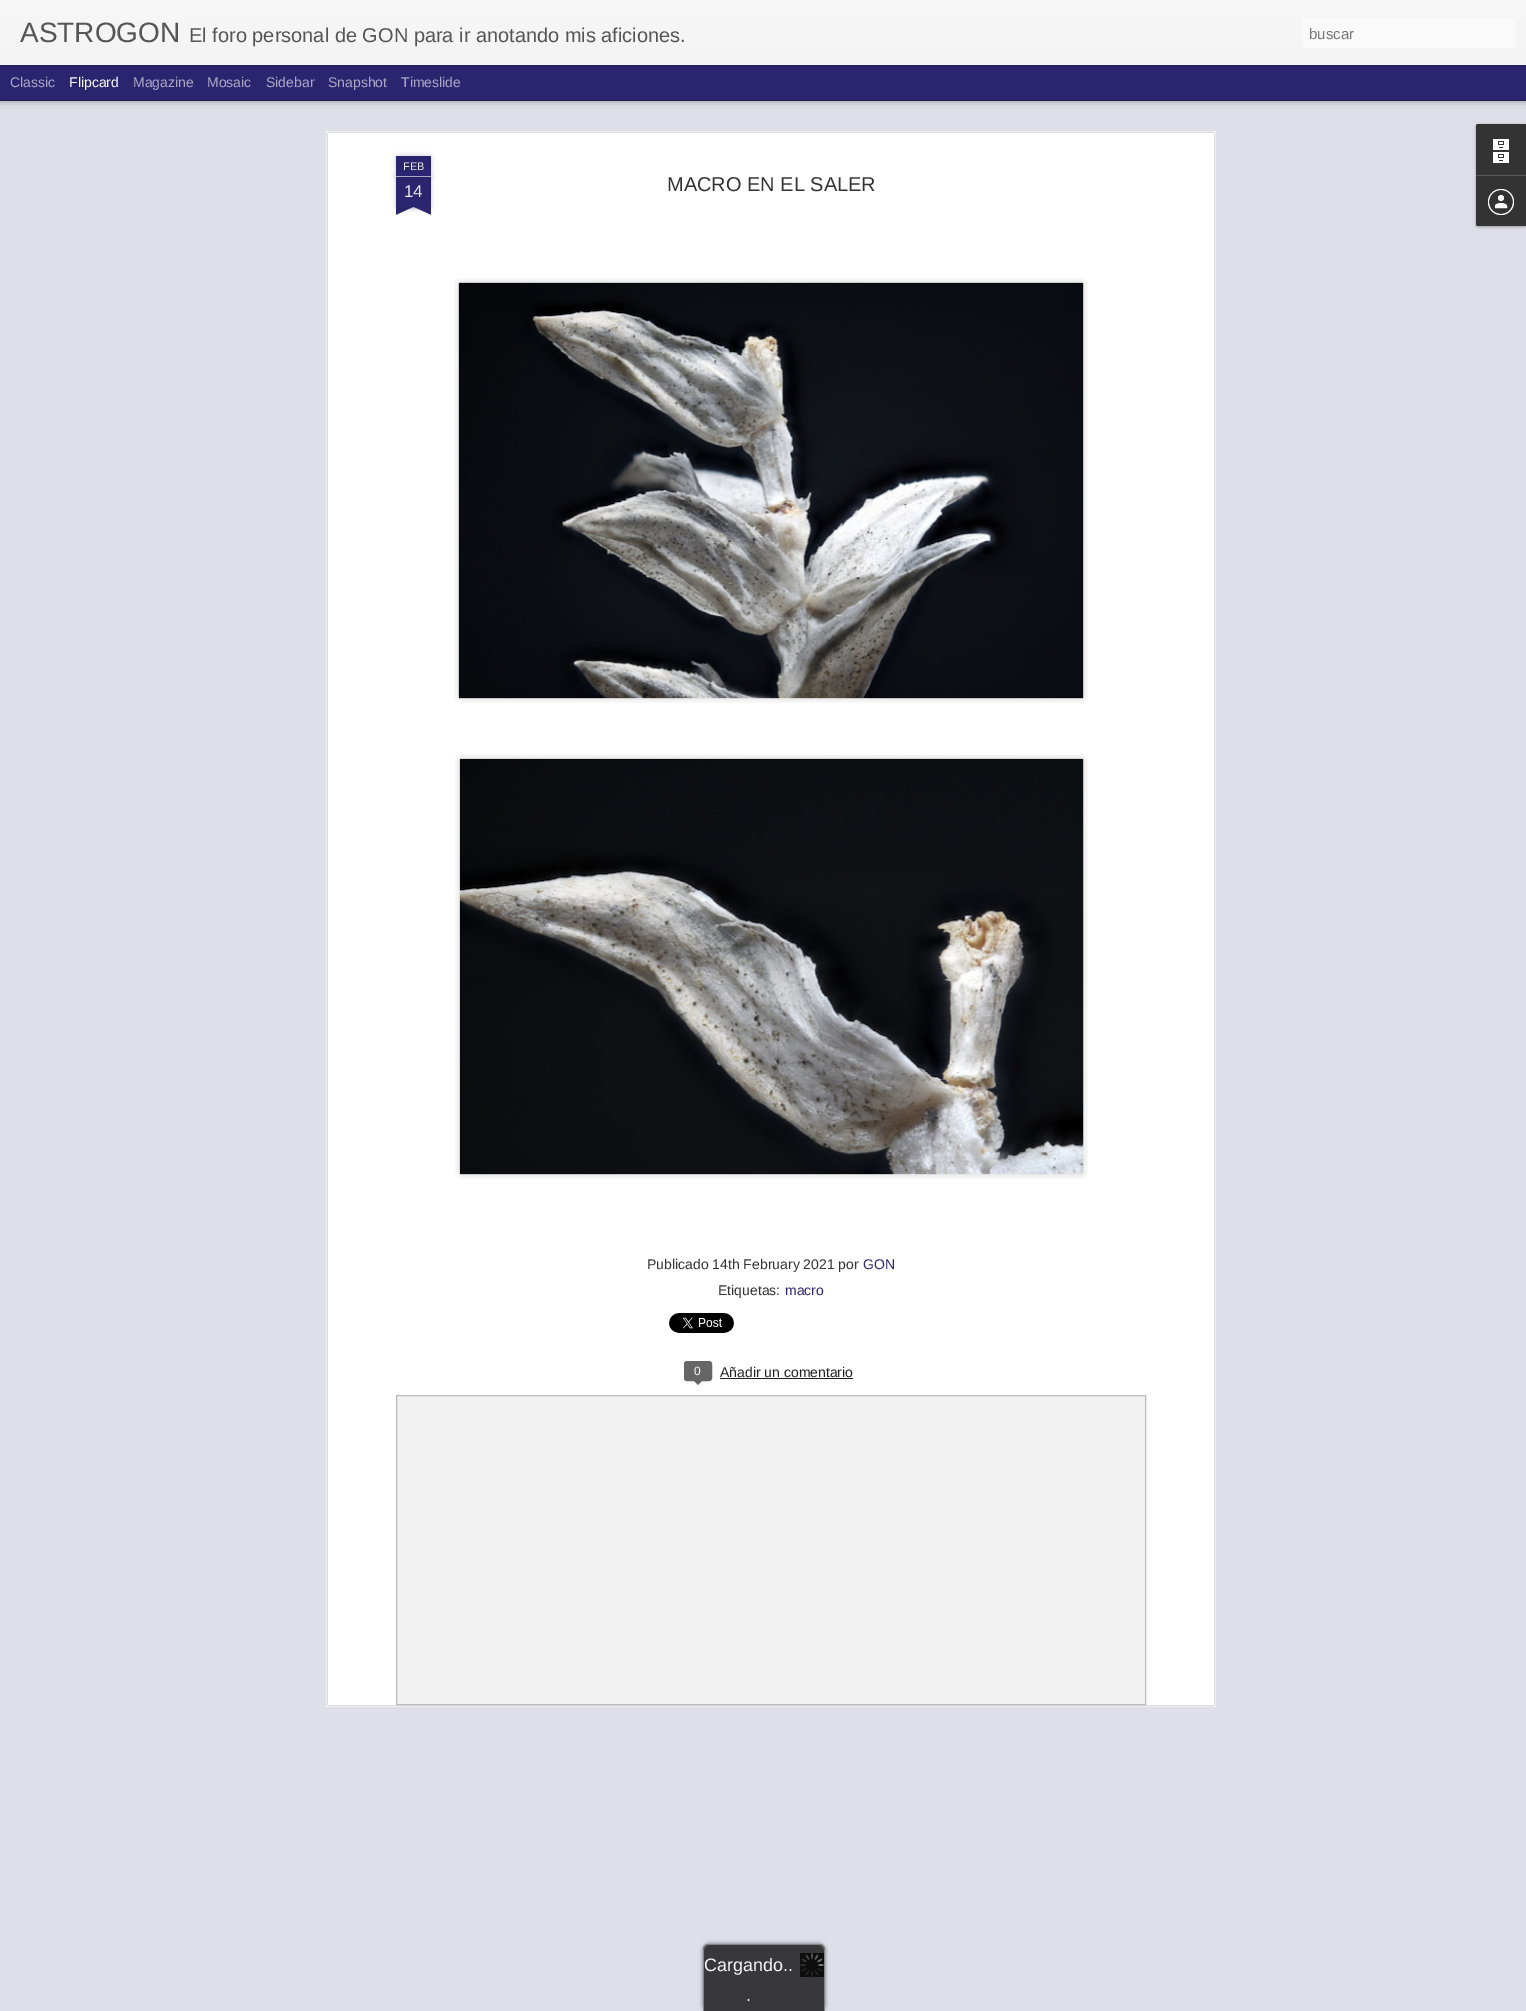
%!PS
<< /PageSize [1526 2011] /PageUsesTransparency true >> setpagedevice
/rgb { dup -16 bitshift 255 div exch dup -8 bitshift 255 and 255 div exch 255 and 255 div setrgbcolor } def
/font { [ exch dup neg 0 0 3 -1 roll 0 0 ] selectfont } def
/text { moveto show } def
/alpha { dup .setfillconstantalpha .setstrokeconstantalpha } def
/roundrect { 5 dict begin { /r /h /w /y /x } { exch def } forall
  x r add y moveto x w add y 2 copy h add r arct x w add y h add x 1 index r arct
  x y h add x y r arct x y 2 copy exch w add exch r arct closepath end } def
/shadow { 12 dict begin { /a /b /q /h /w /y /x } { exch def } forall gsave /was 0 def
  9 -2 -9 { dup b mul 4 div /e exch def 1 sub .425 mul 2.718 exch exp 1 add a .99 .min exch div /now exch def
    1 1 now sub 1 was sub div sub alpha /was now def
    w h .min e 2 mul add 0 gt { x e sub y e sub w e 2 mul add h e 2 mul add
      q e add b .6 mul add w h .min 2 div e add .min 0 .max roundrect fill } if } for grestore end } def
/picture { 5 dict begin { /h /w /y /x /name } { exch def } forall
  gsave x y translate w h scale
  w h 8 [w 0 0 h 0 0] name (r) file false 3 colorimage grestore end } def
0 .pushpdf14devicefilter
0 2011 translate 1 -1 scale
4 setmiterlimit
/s1 { /LiberationSans-Regular 28 font 16#555555 rgb } def
/s2 { /LiberationSans-Regular 20 font 16#555555 rgb } def
/s3 { /LiberationSans-Regular 15 font 16#757575 rgb } def
/s4 { /LiberationSans-Regular 14 font 16#AAA8C5 rgb } def
/s5 { /LiberationSans-Regular 14 font 16#FFFFFF rgb } def
/s6 { /LiberationSans-Regular 11 font 16#EEEEEE rgb } def
/s7 { /LiberationSans-Regular 17 font 16#EEEEEE rgb } def
/s8 { /LiberationSans-Regular 20 font 16#333333 rgb } def
/s9 { /LiberationSans-Regular 14 font 16#333333 rgb } def
/s10 { /LiberationSans-Regular 14 font 16#2B256F rgb } def
/s11 { /LiberationSans-Regular 12 font 16#FFFFFF rgb } def
/s12 { /LiberationSans-Regular 14 font 16#222222 rgb } def
/s13 { /LiberationSans-Regular 18 font 16#F7F7FA rgb } def
16#2B256F rgb
0 0 1526 2011 rectfill
16#DFDFEA rgb
0 101 1526 1910 rectfill
16#000000 rgb
0 65 1526 35 0 4 0.5 shadow
16#2B256F rgb
0 65 1526 35 rectfill
16#000000 rgb
0 0 1526 65 0 2.5 0.3 shadow
gsave 0 0 moveto 1526 0 lineto 1526 65 lineto 0 65 lineto closepath clip newpath
<< /ShadingType 2 /ColorSpace /DeviceRGB /Coords [0 0 0 65] /Extend [true true] /Function << /FunctionType 2 /Domain [0 1] /C0 [0.969 0.969 0.969] /C1 [0.957 0.957 0.957] /N 1 >> >> shfill grestore
s1
(ASTROGON) 20 42 text
s2
(El foro personal de GON para ir anotando mis aficiones.) 189 42 text
16#FAFAFA rgb
1302 18 214 30 3 roundrect fill
s3
(buscar) 1309 39 text
s4
(Classic) 10 87 text
s5
(Flipcard) 69 87 text
s4
(Magazine) 133 87 text
(Mosaic) 207 87 text
(Sidebar) 266 87 text
(Snapshot) 328 87 text
(Timeslide) 401 87 text
16#FFFFFF rgb
326 131 890 1576 rectfill
(pic1.raw) 326 131 890 1576 picture
16#000000 rgb
396 177 35 30 0 2.5 0.2 shadow
16#2B256F rgb
396 177 35 30 rectfill
16#000000 rgb
396 156 35 21 1 2.5 0.2 shadow
16#2B256F rgb
397 156 moveto 430 156 lineto 430.5 156 431 156.5 431 157 curveto 431 177 lineto 396 177 lineto 396 157 lineto 396 156.5 396.5 156 397 156 curveto closepath fill
16#AAA8C5 rgb
396 176 35 1 rectfill
s6
(FEB) 403 170 text
s7
(14) 404 197 text
gsave
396 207 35 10 rectclip
16#000000 rgb
387 197 50 10 0 2.5 0.2 shadow
grestore
gsave
396 207 35 10 rectclip
16#2B256F rgb
387 208 moveto 433 187 lineto 437 196 lineto 391 217 lineto closepath fill
grestore
gsave
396 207 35 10 rectclip
16#000000 rgb
390 197 50 10 0 2.5 0.2 shadow
grestore
gsave
396 207 35 10 rectclip
16#2B256F rgb
394 187 moveto 440 208 lineto 436 217 lineto 390 196 lineto closepath fill
grestore
s8
(MACRO EN EL SALER) 667 191 text
(pic2.raw) 454 278 634 425 picture
(pic3.raw) 458 282 626 417 picture
(pic4.raw) 455 754 633 425 picture
(pic5.raw) 459 758 625 417 picture
s9
(Publicado 14th February 2021 por) 647 1269 text
s10
(GON) 863 1269 text
s9
(Etiquetas:) 718 1295 text
s10
(macro) 785 1295 text
(pic6.raw) 669 1313 65 20 picture
16#666666 rgb
684.5 1361.5 27 19 2.5 roundrect gsave fill grestore
stroke
s11
(0) 694 1375 text
16#666666 rgb
693 1380 moveto 703 1380 lineto 698 1385 lineto closepath fill
s12
(Añadir un comentario) 720 1377 text
720 1378 133 1 rectfill
16#F1F1F1 rgb
396.5 1395.5 moveto 1145.5 1395.5 lineto 1145.5 1704.5 lineto 396.5 1704.5 lineto closepath gsave fill grestore
16#BBBBBB rgb
stroke
16#000000 rgb
1476 125 50 102 2 1.5 0.3 shadow
16#333333 rgb
1478 124 moveto 1526 124 lineto 1526 175 lineto 1476 175 lineto 1476 126 lineto 1476 125 1477 124 1478 124 curveto closepath fill
(pic7.raw) 1493 139 16 24 picture
1476 175 moveto 1526 175 lineto 1526 226 lineto 1478 226 lineto 1477 226 1476 225 1476 224 curveto closepath fill
16#585858 rgb
1476 175 50 1 rectfill
(pic8.raw) 1488 189 26 26 picture
16#5E5E61 rgb
703 1944 122 67 6 2 1 shadow
16#38383B rgb
709 1944 moveto 819 1944 lineto 822.5 1944 825 1946.5 825 1950 curveto 825 2011 lineto 703 2011 lineto 703 1950 lineto 703 1946.5 705.5 1944 709 1944 curveto closepath fill
16#848487 rgb
709 1944 moveto 819 1944 lineto 822 1944 825 1947 825 1950 curveto 825 2011 lineto 703 2011 lineto 703 1950 lineto 703 1947 706 1944 709 1944 curveto closepath 709 1945 moveto 819 1945 lineto 822 1945 824 1947 824 1950 curveto 824 2011 lineto 704 2011 lineto 704 1950 lineto 704 1947 706 1945 709 1945 curveto closepath eofill
(pic9.raw) 800 1953 24 24 picture
s13
(Cargando..) 704 1971 text
(.) 746 2001 text
.poppdf14devicefilter showpage
